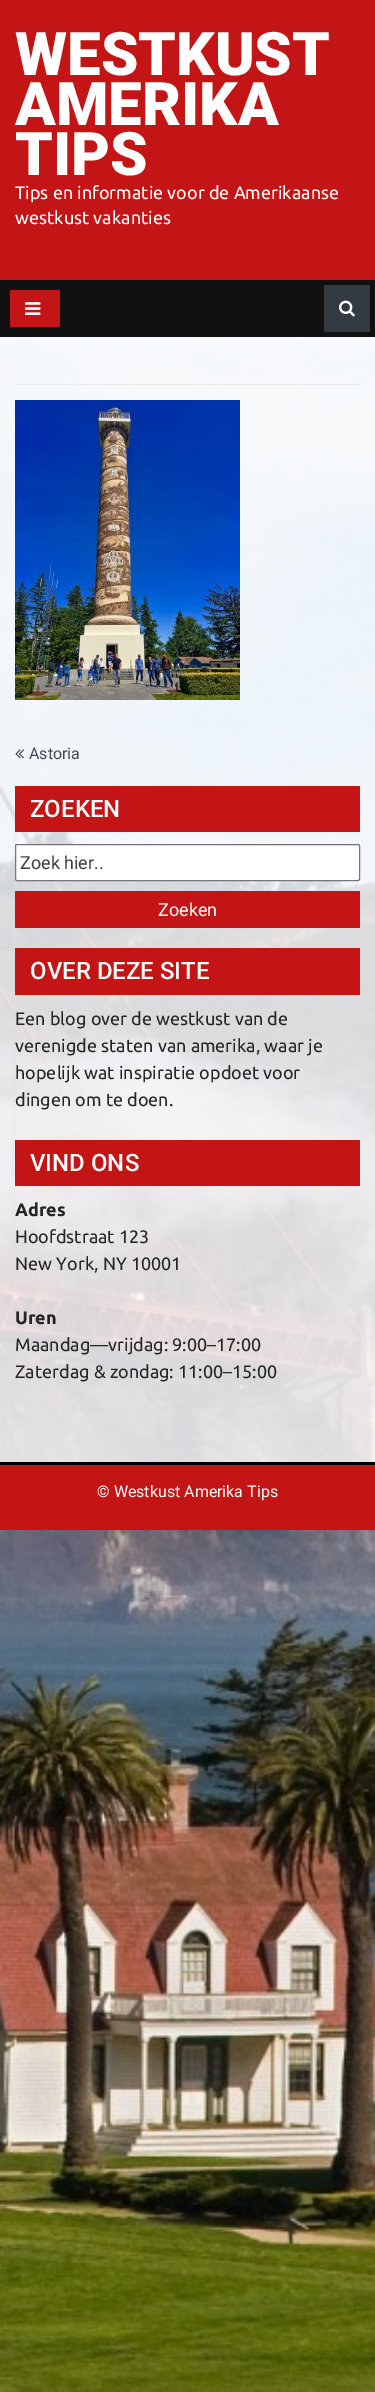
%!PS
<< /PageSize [375 2392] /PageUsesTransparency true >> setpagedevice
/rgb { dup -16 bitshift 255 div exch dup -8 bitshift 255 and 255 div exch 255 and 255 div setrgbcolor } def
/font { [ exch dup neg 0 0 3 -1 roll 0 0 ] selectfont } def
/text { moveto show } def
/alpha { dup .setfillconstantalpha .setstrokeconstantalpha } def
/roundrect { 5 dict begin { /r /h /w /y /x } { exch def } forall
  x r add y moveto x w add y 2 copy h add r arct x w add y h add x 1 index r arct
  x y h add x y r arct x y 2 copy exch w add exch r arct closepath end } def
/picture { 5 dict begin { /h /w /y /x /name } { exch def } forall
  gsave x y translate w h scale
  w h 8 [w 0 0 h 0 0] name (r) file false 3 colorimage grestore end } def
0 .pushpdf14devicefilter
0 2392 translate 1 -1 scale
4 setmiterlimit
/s1 { /Roboto-Black 60 font 16#FFFFFF rgb } def
/s2 { /Ubuntu-Regular 18 font 16#FFFFFF rgb } def
/s3 { /Roboto-Regular 16 font 16#434A53 rgb } def
/s4 { /Roboto-Medium 24 font 16#FFFFFF rgb } def
/s5 { /Roboto-Regular 18 font 16#404040 rgb } def
/s6 { /Roboto-Regular 18 font 16#FFFFFF rgb } def
/s7 { /Ubuntu-Regular 18 font 16#252525 rgb } def
/s8 { /Ubuntu-Bold 18 font 16#252525 rgb } def
/s9 { /Roboto-Regular 16 font 16#FFFFFF rgb } def
16#FFFFFF rgb
0 0 375 2392 rectfill
(pic1.raw) 0 337 375 2055 picture
16#C31516 rgb
0 0 375 280 rectfill
s1
(WESTKUST) 15 75 text
(AMERIKA) 15 125 text
(TIPS) 15 175 text
s2
(Tips en informatie voor de Amerikaanse) 15 199 text
(westkust vakanties) 15 224 text
16#111111 rgb
0 280 375 57 rectfill
16#C31516 rgb
10 290 50 37 rectfill
(pic2.raw) 25 302 16 13 picture
16#333A42 rgb
324 285 46 47 rectfill
(pic3.raw) 339 300 16 17 picture
0.8 alpha
16#FFFFFF rgb
0 337 375 1125 rectfill
1 alpha
16#EBEBEB rgb
15 384 345 1 rectfill
(pic4.raw) 15 400 225 300 picture
(pic5.raw) 15 749 9 10 picture
s3
(Astoria) 29 759 text
16#C31516 rgb
15 786 345 46 rectfill
s4
(ZOEKEN) 30 817 text
15.5 844.5 344 36 1.5 roundrect gsave fill grestore
16#767676 rgb
stroke
s5
(Zoek hier..) 20 869 text
16#C31516 rgb
15 891 345 37 rectfill
s6
(Zoeken) 158 916 text
16#C31516 rgb
15 948 345 47 rectfill
s4
(OVER DEZE SITE) 30 979 text
s7
(Een blog over de westkust van de) 15 1025 text
(verenigde staten van amerika, waar je) 15 1052 text
(hopelijk wat inspiratie opdoet voor) 15 1079 text
(dingen om te doen.) 15 1106 text
16#C31516 rgb
15 1140 345 46 rectfill
s4
(VIND ONS) 30 1171 text
s8
(Adres) 15 1216 text
s7
(Hoofdstraat 123) 15 1243 text
(New York, NY 10001) 15 1270 text
s8
(Uren) 15 1324 text
s7
(Maandag—vrijdag: 9:00–17:00) 15 1351 text
(Zaterdag & zondag: 11:00–15:00) 15 1378 text
16#000000 rgb
0 1462 375 3 rectfill
16#C31516 rgb
0 1465 375 65 rectfill
s9
(© Westkust Amerika Tips) 97 1497 text
.poppdf14devicefilter showpage
